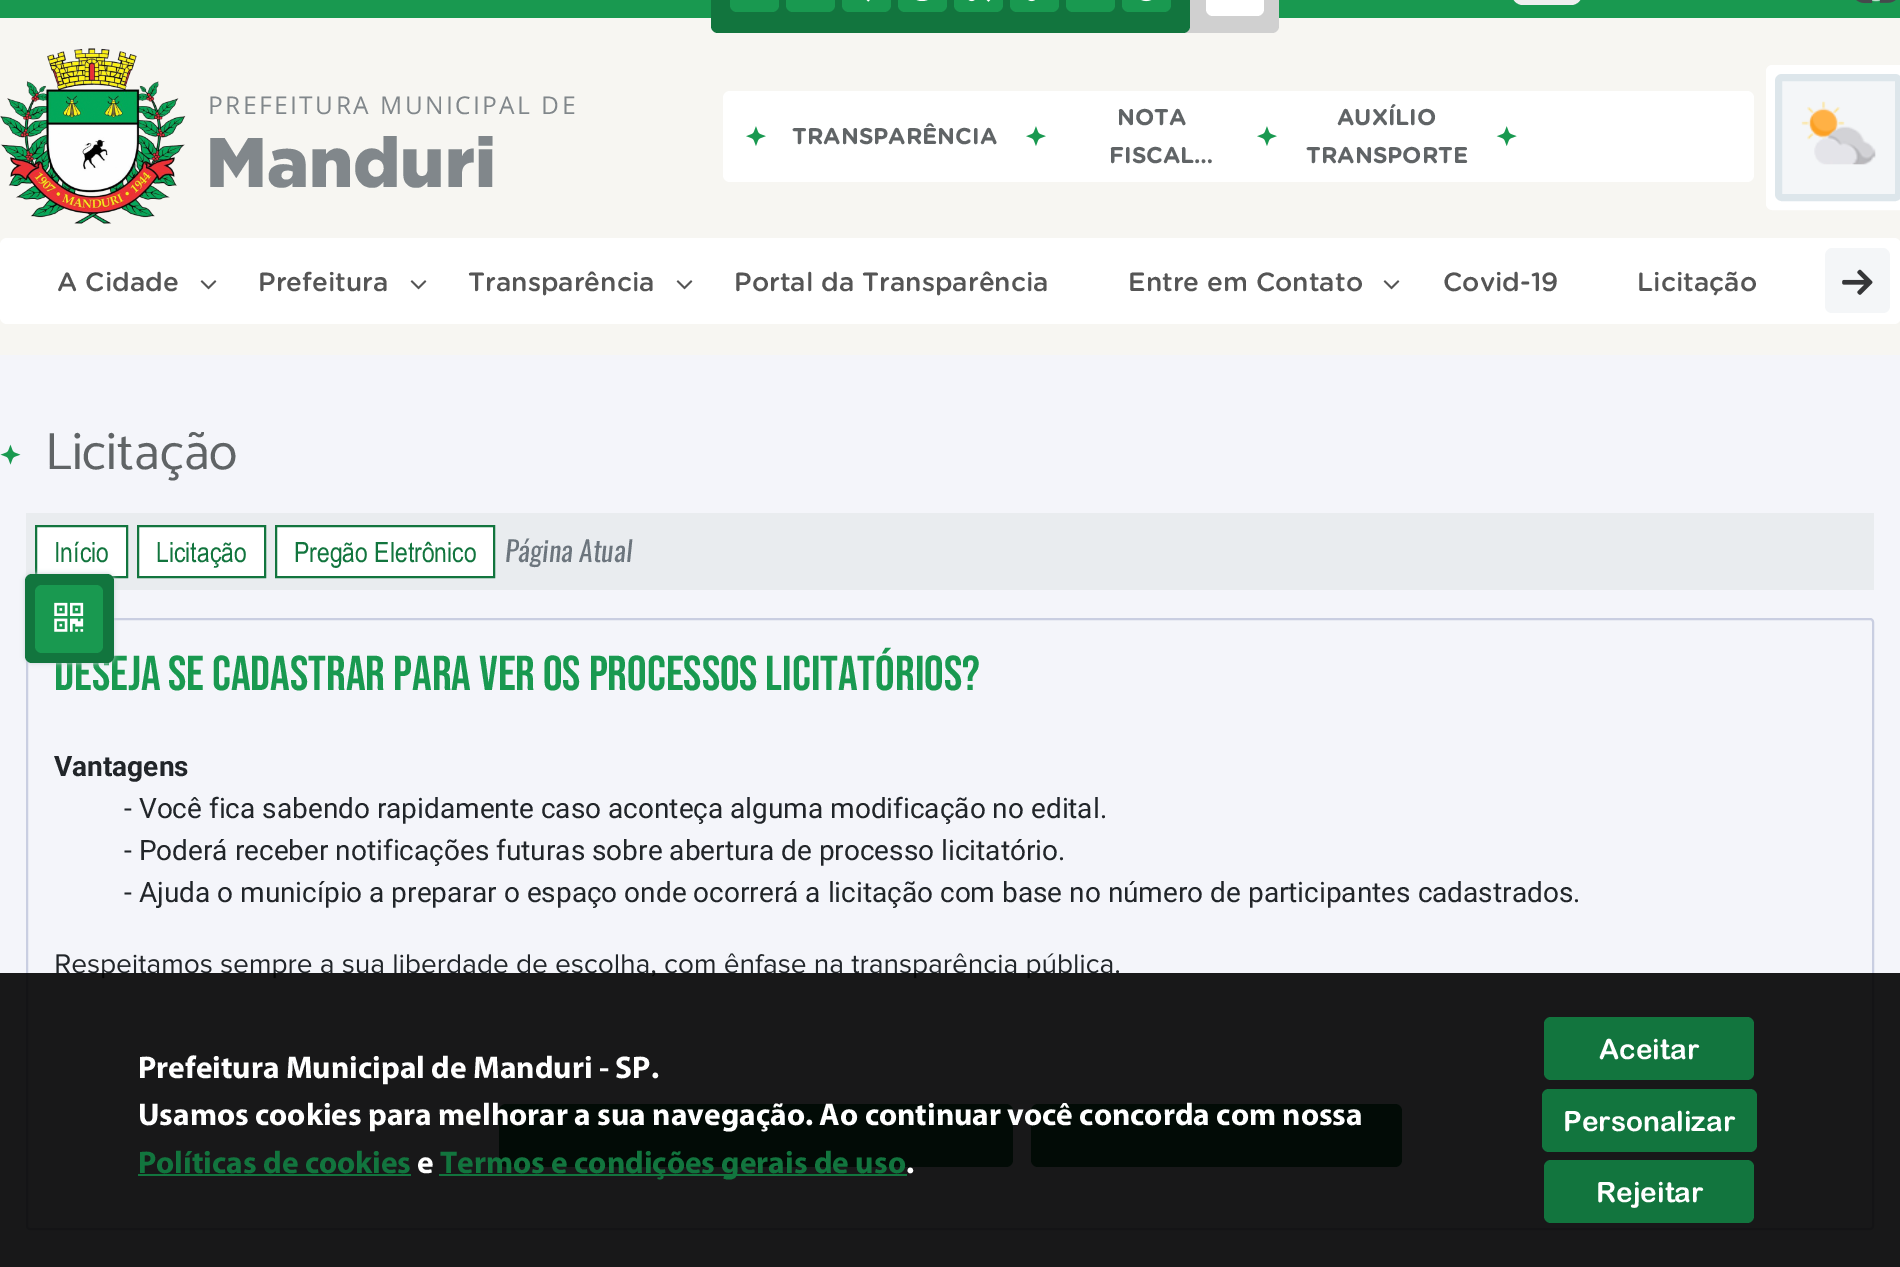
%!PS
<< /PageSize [1900 1267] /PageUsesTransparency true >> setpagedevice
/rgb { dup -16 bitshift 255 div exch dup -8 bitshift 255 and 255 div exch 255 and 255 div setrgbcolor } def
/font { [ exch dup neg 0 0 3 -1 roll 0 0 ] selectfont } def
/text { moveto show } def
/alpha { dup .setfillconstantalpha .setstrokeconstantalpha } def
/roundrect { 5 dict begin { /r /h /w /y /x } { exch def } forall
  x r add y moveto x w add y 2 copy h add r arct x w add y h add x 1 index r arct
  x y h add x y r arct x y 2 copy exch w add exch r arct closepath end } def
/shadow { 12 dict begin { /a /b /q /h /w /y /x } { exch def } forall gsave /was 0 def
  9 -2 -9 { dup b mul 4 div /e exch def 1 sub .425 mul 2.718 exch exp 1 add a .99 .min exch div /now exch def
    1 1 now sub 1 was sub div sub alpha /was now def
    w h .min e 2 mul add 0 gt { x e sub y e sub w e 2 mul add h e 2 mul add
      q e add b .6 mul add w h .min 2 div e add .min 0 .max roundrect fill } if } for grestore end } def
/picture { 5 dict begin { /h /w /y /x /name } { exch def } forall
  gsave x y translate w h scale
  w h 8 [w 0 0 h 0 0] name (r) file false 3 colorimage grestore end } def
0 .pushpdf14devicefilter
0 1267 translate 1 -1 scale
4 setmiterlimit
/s1 { /Gotham-Black 70 font 16#81878B rgb } def
/s2 { /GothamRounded-Bold 22.75 font 16#606466 rgb } def
/s3 { /GothamRounded-Medium 26.25 font 16#555555 rgb } def
/s4 { /Catamaran-Regular 52.5 font 16#606466 rgb } def
/s5 { /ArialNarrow-Regular 28 font 16#12753E rgb } def
/s6 { /Oswald-Italic 28 font 16#6C757D rgb } def
/s7 { /BebasNeue-Regular 49 font 16#199950 rgb } def
/s8 { /Roboto-Bold 28 font 16#212529 rgb } def
/s9 { /Roboto-Regular 28 font 16#212529 rgb } def
/s10 { /Myriad-Bold 31.5 font 16#FFFFFF rgb } def
/s11 { /Myriad-Bold 31.5 font 16#12753E rgb } def
/s12 { /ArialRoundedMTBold-Bold 28 font 16#FFFFFF rgb } def
16#F7F6F2 rgb
0 0 1900 1267 rectfill
16#199950 rgb
0 0 1900 18 rectfill
16#D0D0D0 rgb
800 -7 479 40 7 roundrect fill
16#12753E rgb
711 -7 479 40 7 roundrect fill
16#199950 rgb
730 -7 49 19 7 roundrect fill
786 -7 49 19 7 roundrect fill
842 -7 49 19 7 roundrect fill
(pic1.raw) 866 0 4 2 picture
898 -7 49 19 7 roundrect fill
16#FFFFFF rgb
922 1 moveto 939.5 1 939.5 -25 922 -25 curveto 905 -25 905 1 922 1 curveto closepath 923.5 -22.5 moveto 935.5 -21 935.5 -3 923.5 -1.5 curveto closepath fill
16#199950 rgb
954 -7 49 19 7 roundrect fill
(pic2.raw) 968 0 23 2 picture
1010 -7 49 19 7 roundrect fill
(pic3.raw) 1028 0 7 2 picture
1066 -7 49 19 7 roundrect fill
1122 -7 49 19 7 roundrect fill
(pic4.raw) 1141 0 11 2 picture
16#FFFFFF rgb
1206 -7 58 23 7 roundrect fill
16#EFEFEF rgb
1512 -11 70 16 11 roundrect fill
gsave 1852 -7 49 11 7 roundrect clip newpath 1876 -21 translate 35 35 scale
<< /ShadingType 3 /ColorSpace /DeviceRGB /Coords [0 0 0 0 0 1] /Extend [true true] /Function << /FunctionType 3 /Domain [0 1] /Functions [<< /FunctionType 2 /Domain [0 1] /C0 [1 1 1] /C1 [1 1 1] /N 1 >> << /FunctionType 2 /Domain [0 1] /C0 [1 1 1] /C1 [0.098 0.6 0.314] /N 1 >> << /FunctionType 2 /Domain [0 1] /C0 [0.098 0.6 0.314] /C1 [0.098 0.6 0.314] /N 1 >>] /Bounds [0.6 0.65] /Encode [0 1 0 1 0 1] >> >> shfill grestore
(pic5.raw) 1856 0 40 4 picture
(pic6.raw) 0 48 186 176 picture
/OpenSans-Regular 24.5 font
16#81878B rgb
208 114 moveto 2.45 0 (PREFEITURA MUNICIPAL DE) ashow
s1
(Manduri) 206 187 text
16#FFFFFF rgb
723 91 1031 91 7 roundrect fill
(pic7.raw) 746 126 20 20 picture
s2
(TRANSPARÊNCIA) 792 144 text
(pic7.raw) 1026 126 20 20 picture
(NOTA) 1117 125 text
(FISCAL…) 1109 163 text
(pic7.raw) 1257 126 20 20 picture
(AUXÍLIO) 1337 125 text
(TRANSPORTE) 1306 163 text
(pic8.raw) 1496 126 21 20 picture
16#FFFFFF rgb
1773 65 moveto 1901 65 lineto 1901 210 lineto 1773 210 lineto 1769 210 1766 207 1766 203 curveto 1766 72 lineto 1766 68 1769 65 1773 65 curveto closepath fill
9 setlinewidth
1770.5 69.5 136 136 2.5 roundrect stroke
16#F4F6F8 rgb
1778.5 77.5 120 120 3.5 roundrect gsave fill grestore
16#DDE6EB rgb
7 setlinewidth
stroke
(pic9.raw) 1801 101 75 64 picture
16#FFFFFF rgb
0 238 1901 86 7 roundrect fill
s3
(A Cidade) 57 291 text
(pic10.raw) 200 280 17 10 picture
(Prefeitura) 258 291 text
(pic10.raw) 410 280 17 10 picture
(Transparência) 468 291 text
(pic10.raw) 676 280 17 10 picture
(Portal da Transparência) 734 291 text
(Entre em Contato) 1128 291 text
(pic10.raw) 1383 280 17 10 picture
(Covid-19) 1443 291 text
(Licitação) 1637 291 text
16#F4F6F8 rgb
1883 313 moveto 1832 313 lineto 1828 313 1825 310 1825 306 curveto 1825 256 lineto 1825 252 1828 248 1832 248 curveto 1883 248 lineto 1887 248 1890 252 1890 256 curveto 1890 306 lineto 1890 310 1887 313 1883 313 curveto closepath fill
(pic11.raw) 1842 269 31 26 picture
16#F4F5FA rgb
0 355 1900 912 rectfill
(pic12.raw) 0 444 21 21 picture
s4
(Licitação) 45 469 text
16#E9ECEF rgb
26 513 1848 77 rectfill
16#FFFFFF rgb
36 526 moveto 127 526 lineto 127 577 lineto 36 577 lineto closepath gsave fill grestore
16#12753E rgb
2 setlinewidth
stroke
s5
(Início) 54 562 text
16#FFFFFF rgb
138 526 moveto 265 526 lineto 265 577 lineto 138 577 lineto closepath gsave fill grestore
16#12753E rgb
stroke
(Licitação) 156 562 text
16#FFFFFF rgb
276 526 moveto 494 526 lineto 494 577 lineto 276 577 lineto closepath gsave fill grestore
16#12753E rgb
stroke
(Pregão Eletrônico) 294 562 text
s6
(Página Atual) 505 562 text
16#C9CEE1 rgb
27 619 1846 610 3 roundrect stroke
s7
(Deseja se cadastrar para ver os processos licitatórios?) 54 690 text
s8
(Vantagens) 54 776 text
s9
(- Você fica sabendo rapidamente caso aconteça alguma modificação no edital.) 124 818 text
(- Poderá receber notificações futuras sobre abertura de processo licitatório.) 124 860 text
(- Ajuda o município a preparar o espaço onde ocorrerá a licitação com base no número de participantes cadastrados.) 124 902 text
(pic13.raw) 56 953 1064 26 picture
16#12753E rgb
499 1104 514 63 7 roundrect fill
1031 1104 371 63 7 roundrect fill
0.9 alpha
16#000000 rgb
0 973 1900 294 rectfill
1 alpha
s10
(Prefeitura Municipal de Manduri - SP.) 138 1078 text
(Usamos cookies para melhorar a sua navegação. Ao continuar você concorda com nossa) 138 1125 text
s11
(Políticas de cookies) 138 1173 text
138 1174 273 2 rectfill
s10
(e) 417 1173 text
16#12753E rgb
439 1174 468 2 rectfill
(Termos e condições gerais de uso) 440 1173 text
s10
(.) 906 1173 text
16#12753E rgb
1544 1017 210 63 7 roundrect fill
s12
(Aceitar) 1599 1059 text
16#12753E rgb
1542 1089 215 63 7 roundrect fill
s12
(Personalizar) 1563 1131 text
16#12753E rgb
1544 1160 210 63 7 roundrect fill
s12
(Rejeitar) 1596 1202 text
16#CBD0D6 rgb
25 574 89 89 7 2.5 1 shadow
16#12753E rgb
25 574 89 89 7 roundrect fill
16#199950 rgb
35 585 68 68 7 roundrect fill
(pic14.raw) 54 602 30 30 picture
.poppdf14devicefilter showpage
